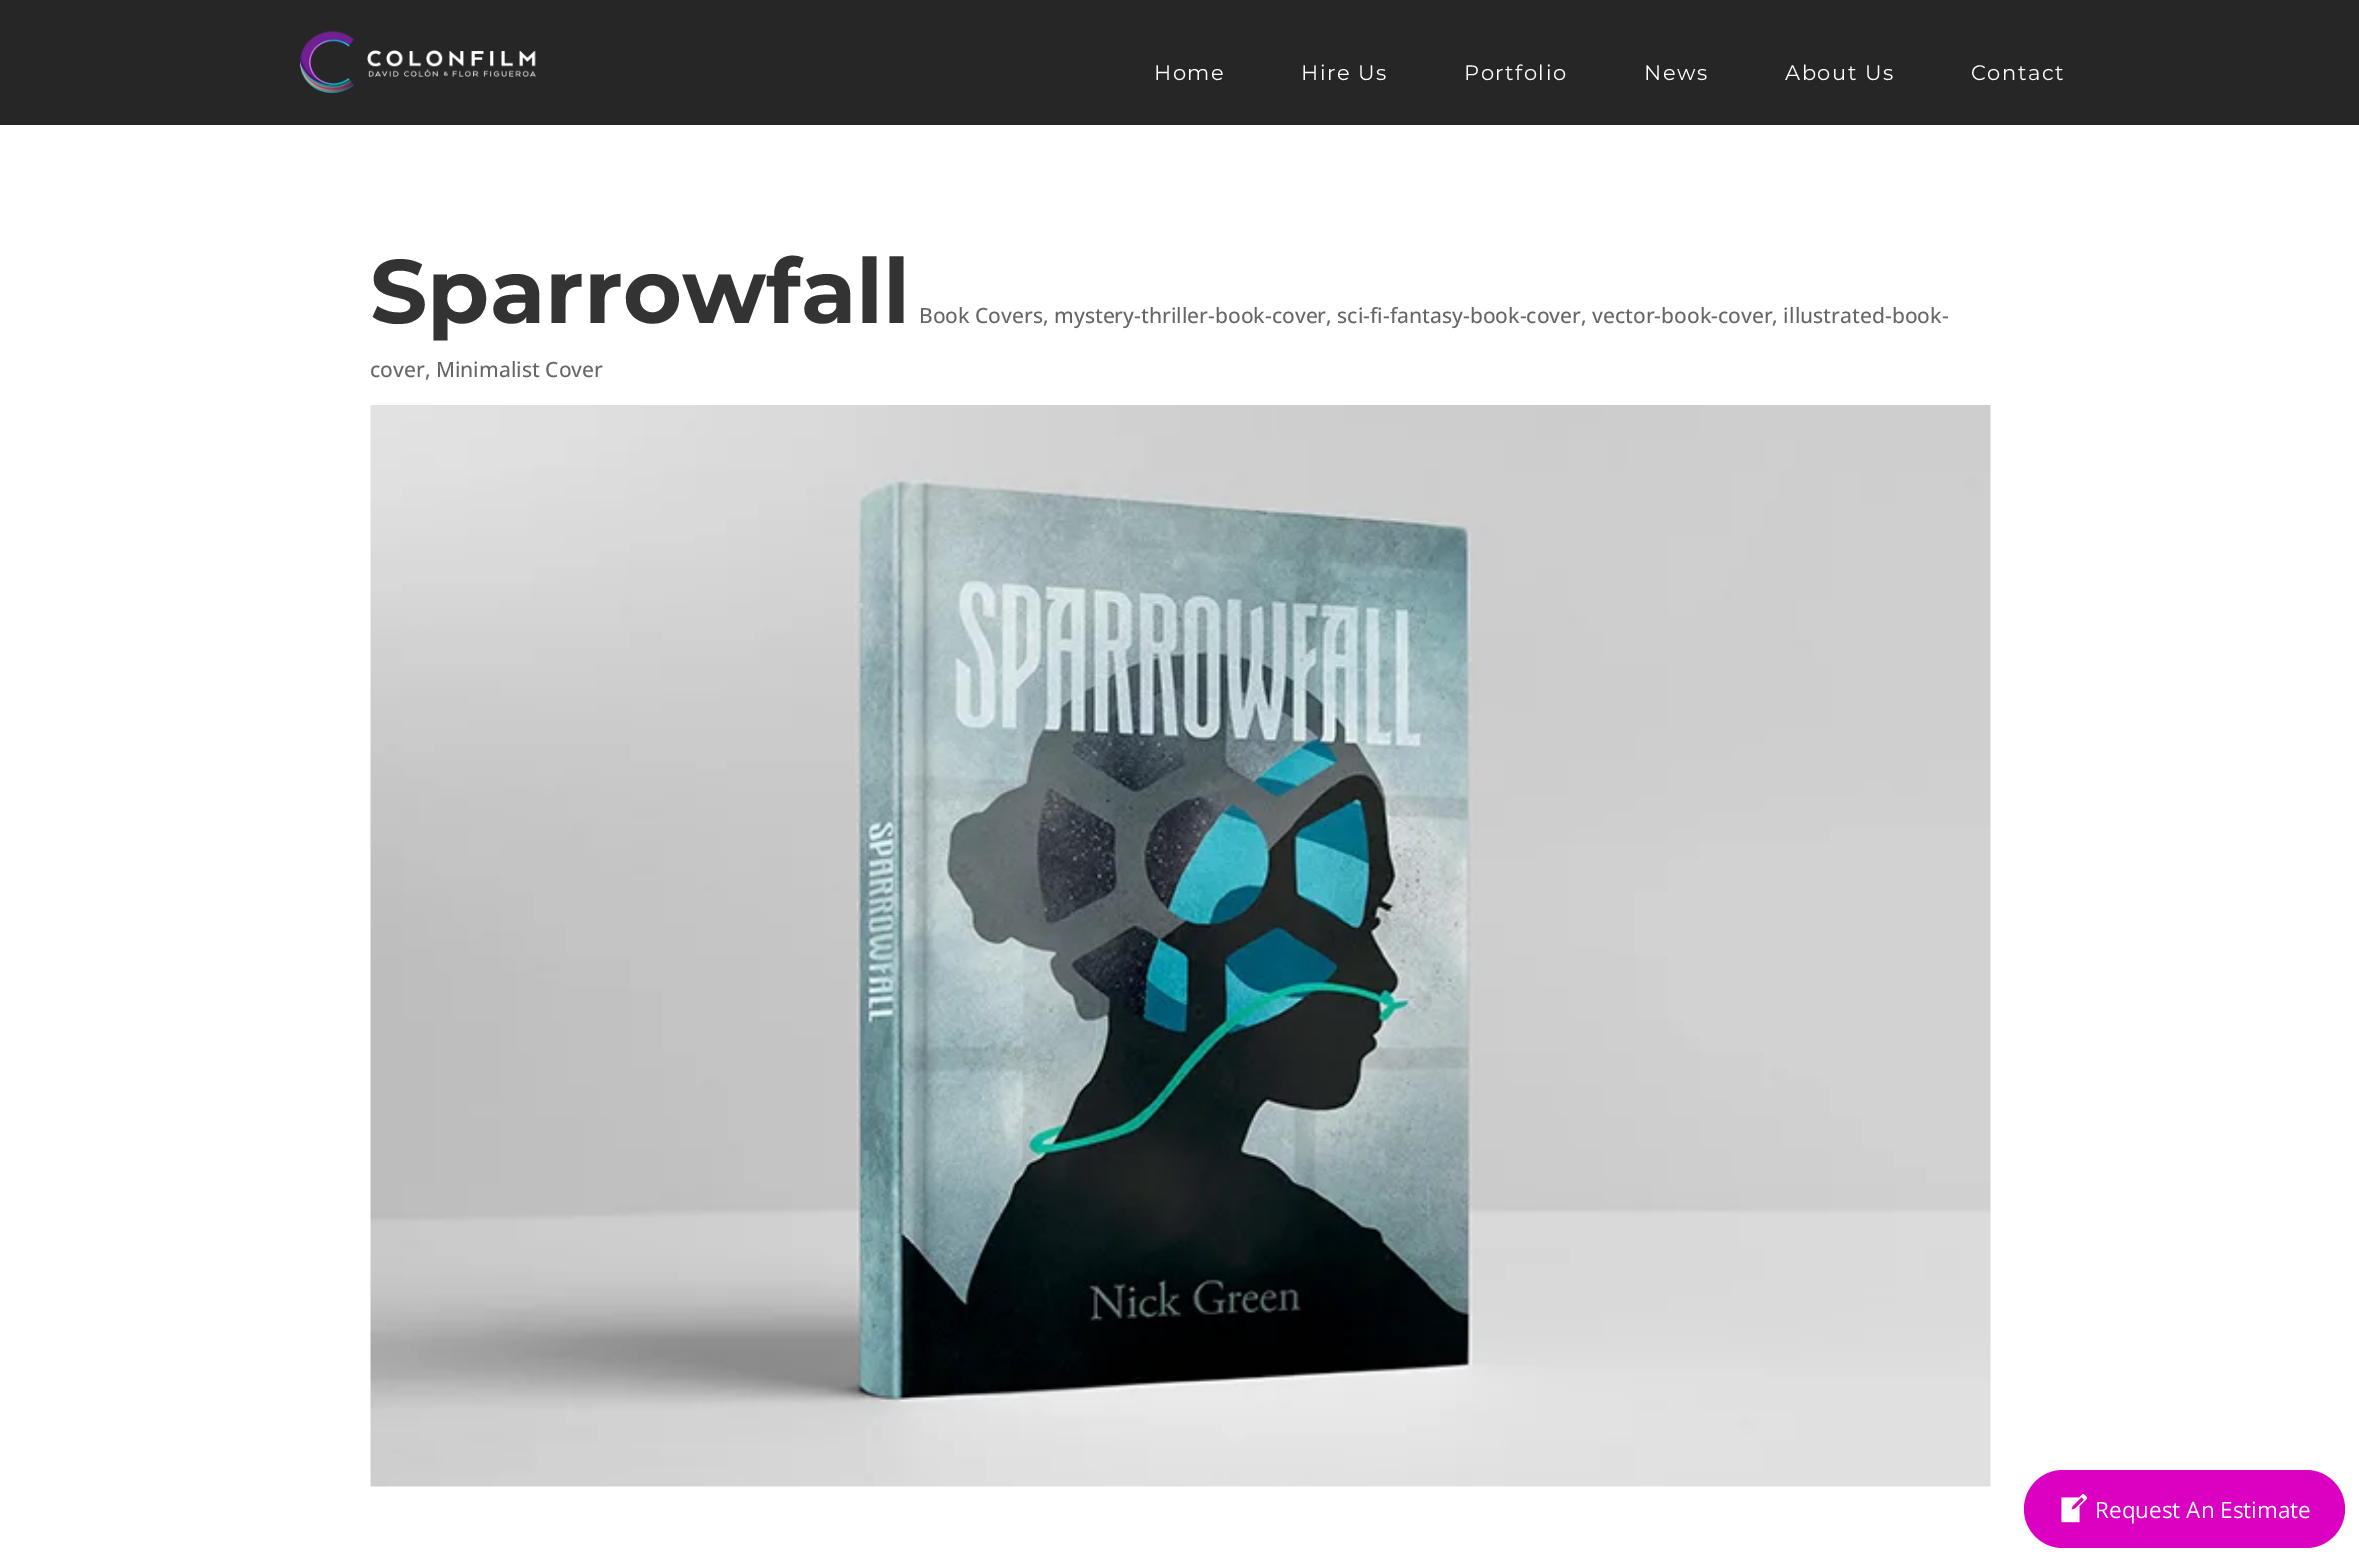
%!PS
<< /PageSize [2359 1561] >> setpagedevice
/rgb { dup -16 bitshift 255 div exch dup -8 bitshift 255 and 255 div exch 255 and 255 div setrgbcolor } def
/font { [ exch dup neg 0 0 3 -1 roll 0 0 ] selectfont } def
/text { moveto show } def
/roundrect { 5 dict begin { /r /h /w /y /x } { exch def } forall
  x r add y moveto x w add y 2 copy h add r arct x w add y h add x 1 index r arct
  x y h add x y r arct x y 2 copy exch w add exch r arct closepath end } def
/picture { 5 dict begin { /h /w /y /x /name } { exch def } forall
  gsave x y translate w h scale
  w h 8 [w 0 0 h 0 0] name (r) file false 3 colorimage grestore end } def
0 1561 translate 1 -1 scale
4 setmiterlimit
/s1 { /Montserrat-Bold 90 font 16#333333 rgb } def
/s2 { /OpenSans-Medium 21 font 16#666666 rgb } def
/s3 { /OpenSans-Regular 22.5 font 16#FFFFFF rgb } def
16#FFFFFF rgb
0 0 2359 1561 rectfill
16#262626 rgb
0 0 2359 125 rectfill
(pic1.raw) 300 31 236 62 picture
/Montserrat-Regular 21 font
16#FFFFFF rgb
1154 80 moveto 1.5 0 (Home) ashow
1301 80 moveto 1.5 0 (Hire Us) ashow
1464 80 moveto 1.5 0 (Portfolio) ashow
1644 80 moveto 1.5 0 (News) ashow
1785 80 moveto 1.5 0 (About Us) ashow
1971 80 moveto 1.5 0 (Contact) ashow
s1
(Sparrowfall) 370 323 text
s2
(Book Covers, mystery-thriller-book-cover, sci-fi-fantasy-book-cover, vector-book-cover, illustrated-book-) 919 323 text
(cover, Minimalist Cover) 370 377 text
(pic2.raw) 370 405 1621 1082 picture
16#DB00C1 rgb
2024 1470 321 78 39 roundrect fill
(pic3.raw) 2061 1494 27 29 picture
s3
(Request An Estimate) 2095 1518 text
showpage
